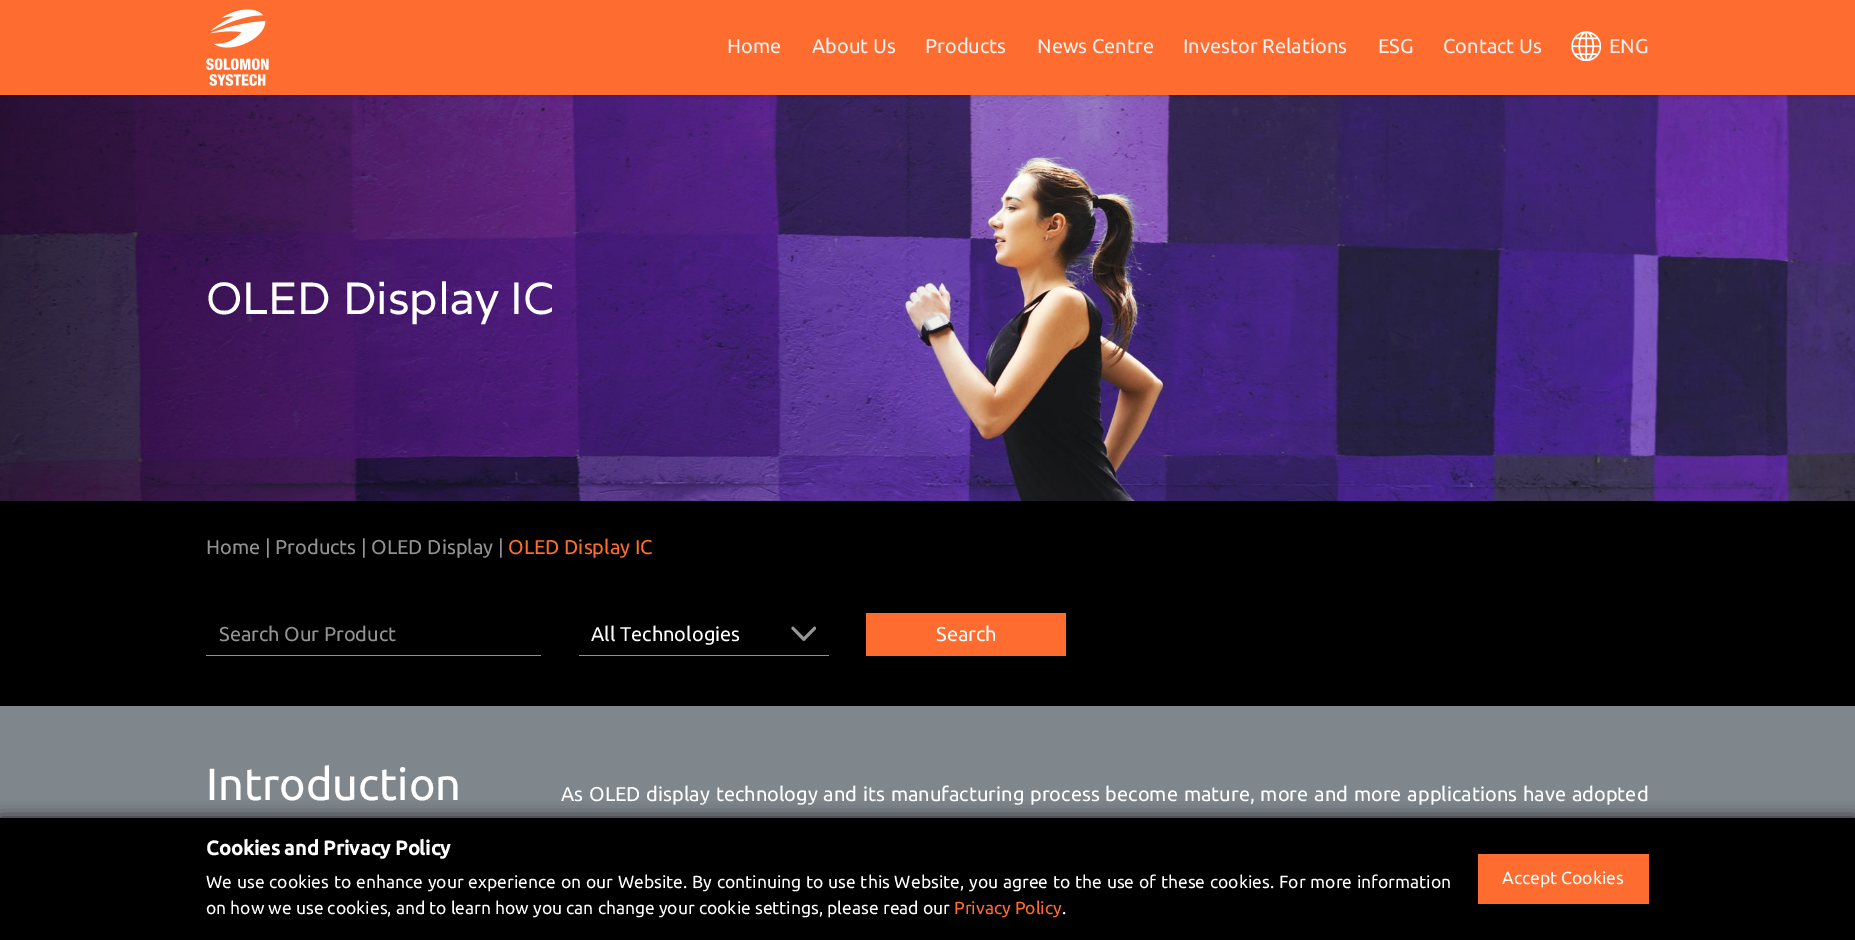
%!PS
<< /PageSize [1855 940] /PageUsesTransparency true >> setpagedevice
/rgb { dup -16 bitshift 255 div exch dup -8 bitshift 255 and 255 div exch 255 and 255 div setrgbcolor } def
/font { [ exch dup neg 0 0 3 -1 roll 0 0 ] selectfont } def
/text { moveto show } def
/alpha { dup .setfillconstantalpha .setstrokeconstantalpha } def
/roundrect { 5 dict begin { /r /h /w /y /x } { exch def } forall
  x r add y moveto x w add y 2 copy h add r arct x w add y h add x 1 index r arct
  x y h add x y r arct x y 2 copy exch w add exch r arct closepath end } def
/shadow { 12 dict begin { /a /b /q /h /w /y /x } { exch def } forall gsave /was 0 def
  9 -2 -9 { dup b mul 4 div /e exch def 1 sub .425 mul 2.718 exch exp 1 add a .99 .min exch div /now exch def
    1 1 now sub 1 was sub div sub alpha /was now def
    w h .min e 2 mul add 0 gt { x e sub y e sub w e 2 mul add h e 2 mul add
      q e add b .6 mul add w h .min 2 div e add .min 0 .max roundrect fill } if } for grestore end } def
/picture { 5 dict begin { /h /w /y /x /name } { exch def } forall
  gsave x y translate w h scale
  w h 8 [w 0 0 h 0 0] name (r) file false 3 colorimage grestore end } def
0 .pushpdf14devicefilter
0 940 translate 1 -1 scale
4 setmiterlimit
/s1 { /Ubuntu-Regular 20 font 16#F2F2F2 rgb } def
/s2 { /Varela-Regular 45 font 16#FFFFFF rgb } def
/s3 { /Ubuntu-Regular 20 font 16#929292 rgb } def
/s4 { /Ubuntu-Regular 20 font 16#FF6C2F rgb } def
/s5 { /Ubuntu-Regular 20 font 16#FFFFFF rgb } def
/s6 { /Ubuntu-Regular 45 font 16#FFFFFF rgb } def
/s7 { /Ubuntu-Bold 20 font 16#FFFFFF rgb } def
/s8 { /Ubuntu-Regular 17.5 font 16#FFFFFF rgb } def
/s9 { /Ubuntu-Regular 17.5 font 16#FF6C2F rgb } def
16#FFFFFF rgb
0 0 1855 940 rectfill
(pic3.raw) 0 95 1855 406 picture
16#000000 rgb
0 3 1855 95 0 2.5 0.07 shadow
16#FF6C2F rgb
0 0 1855 95 rectfill
(pic1.raw) 206 9 63 77 picture
s1
(Home) 727 53 text
(About Us) 812 53 text
(Products) 925 53 text
(News Centre) 1037 53 text
(Investor Relations) 1183 53 text
(ESG) 1378 53 text
(Contact Us) 1443 53 text
(pic2.raw) 1571 31 30 30 picture
(ENG) 1609 53 text
s2
(OLED Display IC) 206 314 text
16#000000 rgb
0 501 1855 205 rectfill
s3
(Home | Products | OLED Display |) 206 554 text
s4
(OLED Display IC) 508 554 text
206 655 335 1 rectfill
s3
(Search Our Product) 219 641 text
16#FF6C2F rgb
579 655 250 1 rectfill
s5
(All Technologies) 591 641 text
(pic4.raw) 791 626 25 15 picture
16#FF6C2F rgb
866 613 200 43 rectfill
s5
(Search) 936 641 text
16#7F878C rgb
0 706 1855 112 rectfill
s6
(Introduction) 206 800 text
/Ubuntu-Regular 20 font
561 801 moveto 1.2 0 32 (As OLED display technology and its manufacturing process become mature, more and more applications have adopted) widthshow
16#000000 rgb
0 818 1855 122 0 7.5 0.8 shadow
0 818 1855 122 rectfill
s7
(Cookies and Privacy Policy) 206 855 text
/Ubuntu-Regular 17.5 font
206 888 moveto 0.7 0 32 (We use cookies to enhance your experience on our Website. By continuing to use this Website, you agree to the use of these cookies. For more information) widthshow
(on how we use cookies, and to learn how you can change your cookie settings, please read our) 206 914 text
s9
(Privacy Policy) 954 914 text
s8
(.) 1062 914 text
16#FF6C2F rgb
1478 854 171 50 rectfill
s8
(Accept Cookies) 1502 884 text
.poppdf14devicefilter showpage
